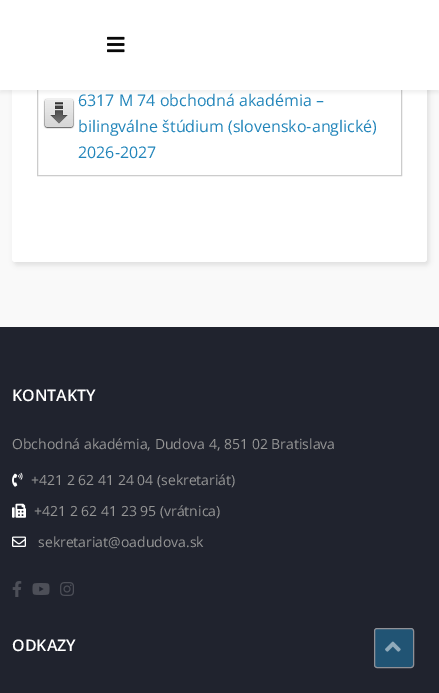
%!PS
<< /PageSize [439 693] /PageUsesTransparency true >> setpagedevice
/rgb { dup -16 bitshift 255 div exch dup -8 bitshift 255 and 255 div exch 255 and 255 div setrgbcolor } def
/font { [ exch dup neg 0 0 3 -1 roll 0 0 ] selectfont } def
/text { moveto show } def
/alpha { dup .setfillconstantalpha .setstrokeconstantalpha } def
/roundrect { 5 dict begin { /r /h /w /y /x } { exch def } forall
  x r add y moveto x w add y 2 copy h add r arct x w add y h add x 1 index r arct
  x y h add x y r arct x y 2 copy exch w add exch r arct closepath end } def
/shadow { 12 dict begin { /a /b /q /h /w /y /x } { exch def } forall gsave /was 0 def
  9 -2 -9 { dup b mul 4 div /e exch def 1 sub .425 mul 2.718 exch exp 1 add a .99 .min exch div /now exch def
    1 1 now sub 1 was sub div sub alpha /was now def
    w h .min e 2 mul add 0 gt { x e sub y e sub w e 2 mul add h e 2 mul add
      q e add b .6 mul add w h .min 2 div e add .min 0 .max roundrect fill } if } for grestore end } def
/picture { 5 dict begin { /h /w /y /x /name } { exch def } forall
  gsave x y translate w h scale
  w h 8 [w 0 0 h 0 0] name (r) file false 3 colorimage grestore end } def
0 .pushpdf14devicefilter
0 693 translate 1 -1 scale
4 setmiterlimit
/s1 { /OpenSans-Regular 16 font 16#2285BA rgb } def
/s2 { /OpenSans-SemiBold 16 font 16#FFFFFF rgb } def
/s3 { /OpenSans-Regular 14 font 16#959595 rgb } def
16#F9F9F9 rgb
0 0 439 693 rectfill
16#000000 rgb
14 -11 415 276 3 2.5 0.1 shadow
16#FFFFFF rgb
12 -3 415 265 3 roundrect fill
(pic2.raw) 43 98 32 31 picture
16#CCCCCC rgb
37.5 50.5 364 125 rectstroke
16#000000 rgb
0 3 439 90 0 1.5 0.05 shadow
16#FFFFFF rgb
0 0 439 90 rectfill
(pic1.raw) 107 36 18 17 picture
s1
(6317 M 74 obchodná akadémia –) 78 106 text
(bilingválne štúdium \(slovensko-anglické\)) 78 132 text
(2026-2027) 78 158 text
16#20232E rgb
0 327 439 366 rectfill
s2
(KONTAKTY) 12 401 text
s3
(Obchodná akadémia, Dudova 4, 851 02 Bratislava) 12 449 text
(pic3.raw) 12 472 11 15 picture
(+421 2 62 41 24 04 \(sekretariát\)) 31 485 text
(pic4.raw) 12 503 14 15 picture
(+421 2 62 41 23 95 \(vrátnica\)) 34 516 text
(pic5.raw) 12 536 14 11 picture
(sekretariat@oadudova.sk) 38 547 text
(pic6.raw) 12 581 10 16 picture
(pic7.raw) 32 583 18 12 picture
(pic8.raw) 60 582 14 14 picture
s2
(ODKAZY) 12 651 text
16#215474 rgb
374.5 628.5 39 39 2.5 roundrect gsave fill grestore
16#909197 rgb
stroke
(pic9.raw) 385 641 16 11 picture
.poppdf14devicefilter showpage
